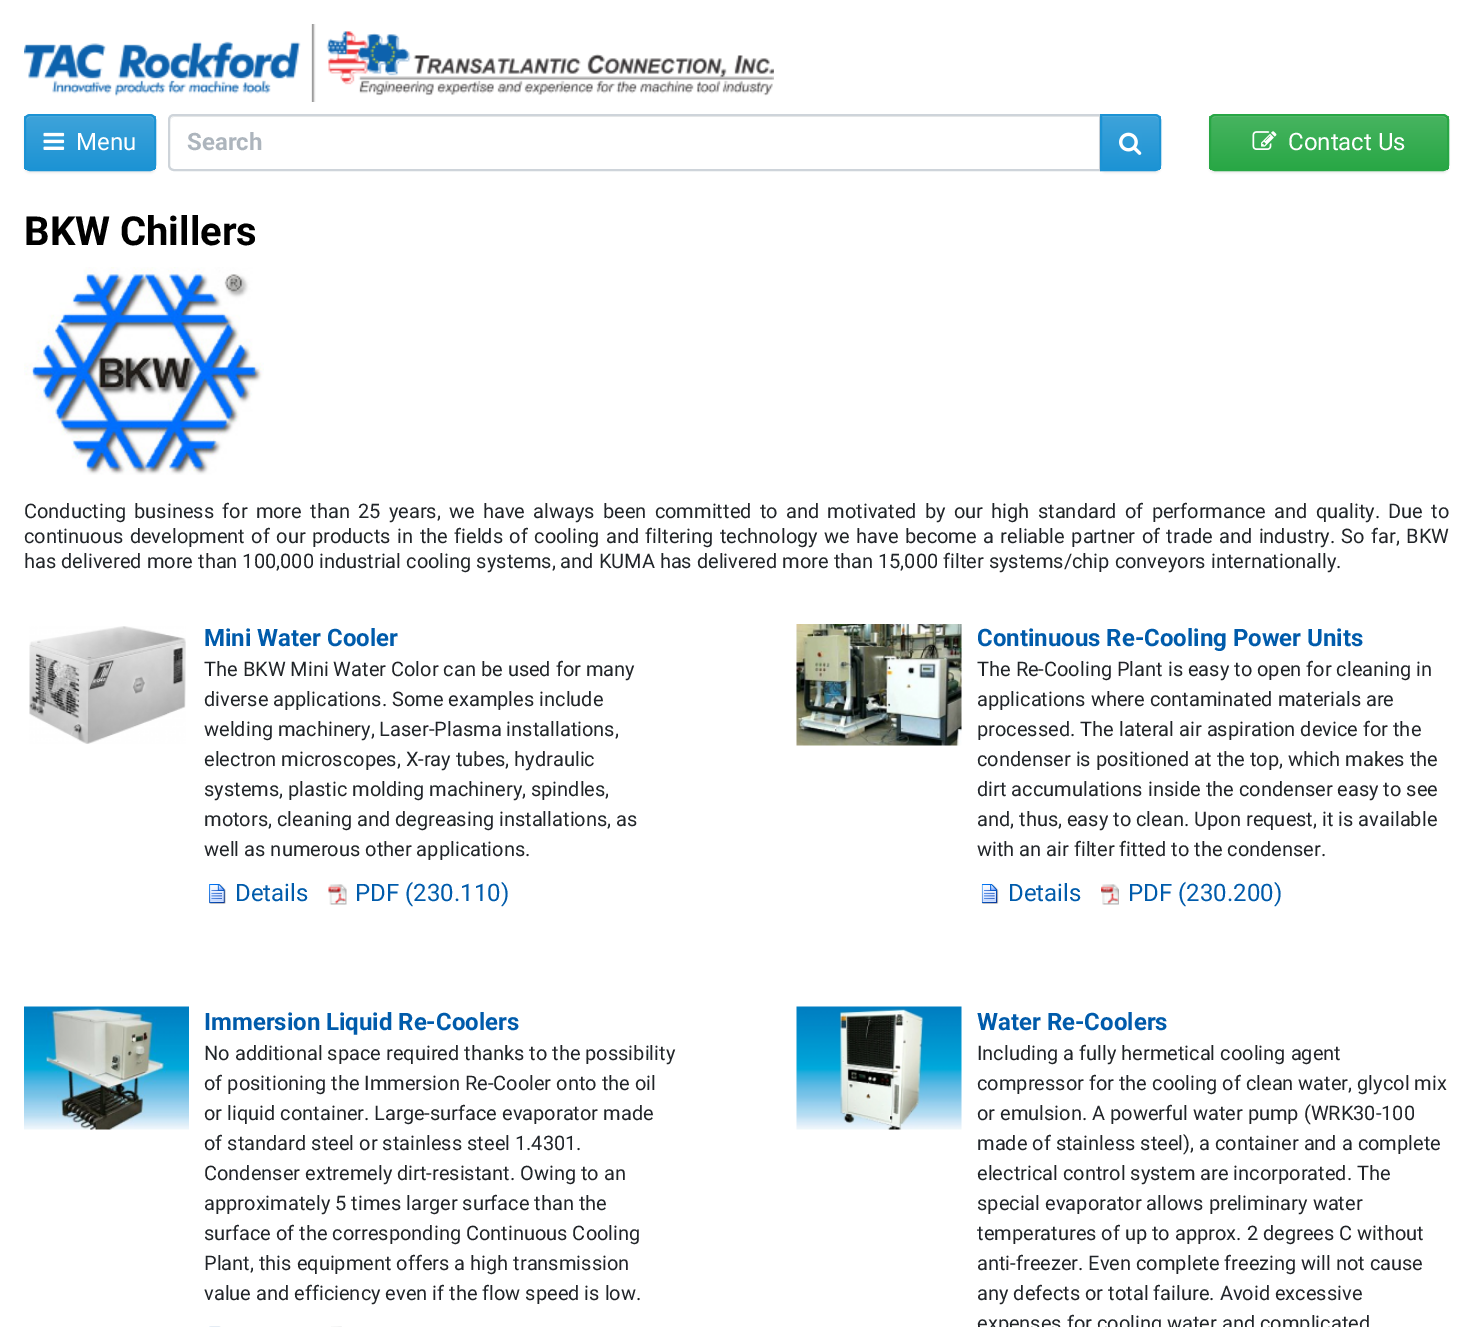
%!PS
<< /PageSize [1473 1327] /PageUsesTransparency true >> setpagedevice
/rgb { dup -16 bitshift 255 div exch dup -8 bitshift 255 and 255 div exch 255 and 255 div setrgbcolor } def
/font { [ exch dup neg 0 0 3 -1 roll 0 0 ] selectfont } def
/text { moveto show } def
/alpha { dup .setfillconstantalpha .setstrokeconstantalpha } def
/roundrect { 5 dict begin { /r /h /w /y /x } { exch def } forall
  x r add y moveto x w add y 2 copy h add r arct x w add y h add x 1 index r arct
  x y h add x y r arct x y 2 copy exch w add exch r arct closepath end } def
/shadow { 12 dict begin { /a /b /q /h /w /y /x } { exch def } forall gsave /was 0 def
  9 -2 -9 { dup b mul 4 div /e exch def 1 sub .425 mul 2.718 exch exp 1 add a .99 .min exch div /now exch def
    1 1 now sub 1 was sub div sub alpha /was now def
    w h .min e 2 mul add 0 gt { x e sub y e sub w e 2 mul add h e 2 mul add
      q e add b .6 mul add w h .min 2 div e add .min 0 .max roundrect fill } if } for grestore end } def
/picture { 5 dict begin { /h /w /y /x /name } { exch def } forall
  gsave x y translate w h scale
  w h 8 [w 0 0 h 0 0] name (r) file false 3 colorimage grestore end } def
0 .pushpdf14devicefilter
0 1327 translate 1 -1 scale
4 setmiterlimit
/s1 { /Roboto-Regular 24 font 16#FFFFFF rgb } def
/s2 { /Roboto-Bold 24 font 16#ADB5BD rgb } def
/s3 { /Roboto-Bold 40 font 16#000000 rgb } def
/s4 { /Roboto-Regular 20 font 16#212529 rgb } def
/s5 { /Roboto-Bold 24 font 16#005BAB rgb } def
/s6 { /Roboto-Regular 24 font 16#005BAB rgb } def
16#FFFFFF rgb
0 0 1473 1327 rectfill
(pic1.raw) 24 24 750 78 picture
16#000000 rgb
24 116 132 57 6 1 0.07 shadow
gsave
24 114 132 57 6 roundrect clip newpath
gsave 24 116 moveto 156 116 lineto 156 170 lineto 24 170 lineto closepath clip newpath
<< /ShadingType 2 /ColorSpace /DeviceRGB /Coords [90 116 90 170] /Extend [true true] /Function << /FunctionType 2 /Domain [0 1] /C0 [0.243 0.639 0.855] /C1 [0.11 0.576 0.831] /N 1 >> >> shfill grestore
grestore
0.15 alpha
16#FFFFFF rgb
30 117 moveto 150 117 lineto 152 117 154 119 154 122 curveto 154 166 lineto 153 169 lineto 154 168 155 166 155 165 curveto 155 121 lineto 155 118 153 116 150 116 curveto 31 116 lineto 28 116 26 118 26 121 curveto 26 122 lineto 26 119 28 117 30 117 curveto closepath fill
1 alpha
16#1C93D4 rgb
2 setlinewidth
25 115 130 55 5 roundrect stroke
(pic2.raw) 43 132 22 18 picture
s1
(Menu) 76 150 text
16#ECECEC rgb
174 117 moveto 1100 117 lineto 1100 116 lineto 175 116 lineto 172 116 170 119 170 122 curveto 170 119 172 117 174 117 curveto closepath fill
16#CED4DA rgb
174 115 moveto 1100 115 lineto 1100 170 lineto 174 170 lineto 171 170 169 168 169 165 curveto 169 120 lineto 169 117 171 115 174 115 curveto closepath stroke
s2
(Search) 187 150 text
16#000000 rgb
1100 116 61 57 6 1 0.07 shadow
gsave
1100 114 moveto 1155 114 lineto 1158.5 114 1161 116.5 1161 120 curveto 1161 165 lineto 1161 168.5 1158.5 171 1155 171 curveto 1100 171 lineto closepath clip newpath
gsave 1102 116 moveto 1161 116 lineto 1161 170 lineto 1102 170 lineto closepath clip newpath
<< /ShadingType 2 /ColorSpace /DeviceRGB /Coords [1130 116 1130 170] /Extend [true true] /Function << /FunctionType 2 /Domain [0 1] /C0 [0.243 0.639 0.855] /C1 [0.11 0.576 0.831] /N 1 >> >> shfill grestore
grestore
16#5BB1E0 rgb
1101 117 moveto 1155 117 lineto 1157 117 1160 119 1160 122 curveto 1160 121 lineto 1160 118 1158 116 1155 116 curveto 1101 116 lineto closepath fill
16#1C93D4 rgb
1101 115 moveto 1155 115 lineto 1158 115 1160 117 1160 120 curveto 1160 165 lineto 1160 168 1158 170 1155 170 curveto 1101 170 lineto closepath stroke
(pic3.raw) 1119 132 23 23 picture
16#000000 rgb
1209 116 240 57 6 1 0.07 shadow
gsave
1209 114 240 57 6 roundrect clip newpath
gsave 1209 116 moveto 1449 116 lineto 1449 170 lineto 1209 170 lineto closepath clip newpath
<< /ShadingType 2 /ColorSpace /DeviceRGB /Coords [1329 115 1329 170] /Extend [true true] /Function << /FunctionType 2 /Domain [0 1] /C0 [0.282 0.706 0.38] /C1 [0.157 0.655 0.271] /N 1 >> >> shfill grestore
grestore
16#63BF78 rgb
1215 117 moveto 1443 117 lineto 1445 117 1448 119 1448 122 curveto 1448 121 lineto 1448 118 1446 116 1443 116 curveto 1216 116 lineto 1214 116 1213 117 1212 118 curveto closepath fill
16#28A745 rgb
1210 115 238 55 5 roundrect stroke
(pic4.raw) 1252 131 25 19 picture
s1
(Contact Us) 1288 150 text
s3
(BKW Chillers) 24 245 text
(pic5.raw) 24 267 240 208 picture
/Roboto-Regular 20 font
16#212529 rgb
24 518 moveto 3.3 0 32 (Conducting business for more than 25 years, we have always been committed to and motivated by our high standard of performance and quality. Due to) widthshow
24 543 moveto 1.45 0 32 (continuous development of our products in the fields of cooling and filtering technology we have become a reliable partner of trade and industry. So far, BKW) widthshow
(has delivered more than 100,000 industrial cooling systems, and KUMA has delivered more than 15,000 filter systems/chip conveyors internationally.) 24 568 text
(pic6.raw) 29 626 157 118 picture
s5
(Mini Water Cooler) 204 646 text
s4
(The BKW Mini Water Color can be used for many) 204 676 text
(diverse applications. Some examples include) 204 706 text
(welding machinery, Laser-Plasma installations,) 204 736 text
(electron microscopes, X-ray tubes, hydraulic) 204 766 text
(systems, plastic molding machinery, spindles,) 204 796 text
(motors, cleaning and degreasing installations, as) 204 826 text
(well as numerous other applications.) 204 856 text
(pic7.raw) 209 884 17 20 picture
s6
(Details) 235 901 text
(pic8.raw) 328 884 19 21 picture
(PDF \(230.110\)) 355 901 text
(pic9.raw) 796 624 166 122 picture
s5
(Continuous Re-Cooling Power Units) 977 646 text
s4
(The Re-Cooling Plant is easy to open for cleaning in) 977 676 text
(applications where contaminated materials are) 977 706 text
(processed. The lateral air aspiration device for the) 977 736 text
(condenser is positioned at the top, which makes the) 977 766 text
(dirt accumulations inside the condenser easy to see) 977 796 text
(and, thus, easy to clean. Upon request, it is available) 977 826 text
(with an air filter fitted to the condenser.) 977 856 text
(pic10.raw) 981 884 18 20 picture
s6
(Details) 1008 901 text
(pic11.raw) 1101 884 18 21 picture
(PDF \(230.200\)) 1128 901 text
(pic12.raw) 24 1006 165 124 picture
s5
(Immersion Liquid Re-Coolers) 204 1030 text
s4
(No additional space required thanks to the possibility) 204 1060 text
(of positioning the Immersion Re-Cooler onto the oil) 204 1090 text
(or liquid container. Large-surface evaporator made) 204 1120 text
(of standard steel or stainless steel 1.4301.) 204 1150 text
(Condenser extremely dirt-resistant. Owing to an) 204 1180 text
(approximately 5 times larger surface than the) 204 1210 text
(surface of the corresponding Continuous Cooling) 204 1240 text
(Plant, this equipment offers a high transmission) 204 1270 text
(value and efficiency even if the flow speed is low.) 204 1300 text
(pic13.raw) 209 1326 12 1 picture
(pic14.raw) 331 1326 11 1 picture
(pic15.raw) 796 1006 166 124 picture
s5
(Water Re-Coolers) 977 1030 text
s4
(Including a fully hermetical cooling agent) 977 1060 text
(compressor for the cooling of clean water, glycol mix) 977 1090 text
(or emulsion. A powerful water pump \(WRK30-100) 977 1120 text
(made of stainless steel\), a container and a complete) 977 1150 text
(electrical control system are incorporated. The) 977 1180 text
(special evaporator allows preliminary water) 977 1210 text
(temperatures of up to approx. 2 degrees C without) 977 1240 text
(anti-freezer. Even complete freezing will not cause) 977 1270 text
(any defects or total failure. Avoid excessive) 977 1300 text
(expenses for cooling water and complicated) 977 1330 text
.poppdf14devicefilter showpage
